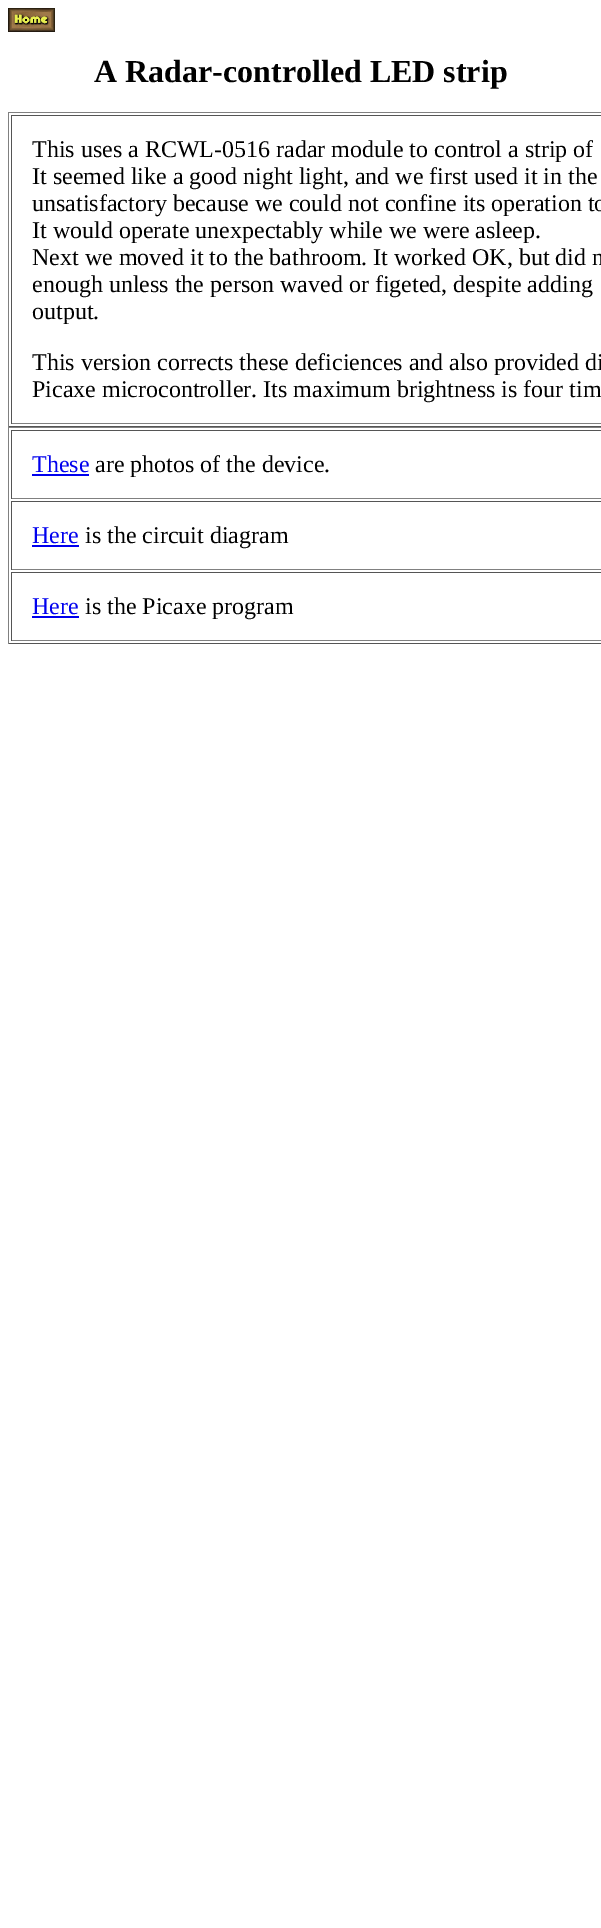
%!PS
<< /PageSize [601 1928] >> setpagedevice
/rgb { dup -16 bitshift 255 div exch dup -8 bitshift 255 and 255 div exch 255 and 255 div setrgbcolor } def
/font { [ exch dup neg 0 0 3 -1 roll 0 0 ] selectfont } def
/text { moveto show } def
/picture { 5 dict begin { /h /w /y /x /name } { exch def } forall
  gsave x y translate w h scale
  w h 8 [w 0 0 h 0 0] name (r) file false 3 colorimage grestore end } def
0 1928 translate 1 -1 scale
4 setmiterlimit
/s1 { /LiberationSerif-Bold 32 font 16#000000 rgb } def
/s2 { /LiberationSerif-Regular 24 font 16#000000 rgb } def
/s3 { /LiberationSerif-Regular 24 font 16#0000EE rgb } def
16#FFFFFF rgb
0 0 601 1928 rectfill
(pic1.raw) 8 8 47 24 picture
s1
(A Radar-controlled LED strip) 94 82 text
16#808080 rgb
8 112 593 1 rectfill
16#555555 rgb
8 426 593 1 rectfill
16#808080 rgb
8 112 1 315 rectfill
16#555555 rgb
11 115 590 1 rectfill
16#808080 rgb
11 423 590 1 rectfill
16#555555 rgb
11 115 1 309 rectfill
s2
(This uses a RCWL-0516 radar module to control a strip of) 32 157 text
(It seemed like a good night light, and we first used it in the) 32 184 text
(unsatisfactory because we could not confine its operation to) 32 211 text
(It would operate unexpectably while we were asleep.) 32 238 text
(Next we moved it to the bathroom. It worked OK, but did n) 32 265 text
(enough unless the person waved or figeted, despite adding) 32 292 text
(output.) 32 319 text
(This version corrects these deficiences and also provided di) 32 370 text
(Picaxe microcontroller. Its maximum brightness is four tim) 32 397 text
16#808080 rgb
8 427 593 1 rectfill
16#555555 rgb
8 643 593 1 rectfill
16#808080 rgb
8 427 1 217 rectfill
16#555555 rgb
11 430 590 1 rectfill
16#808080 rgb
11 498 590 1 rectfill
16#555555 rgb
11 430 1 69 rectfill
s3
(These) 32 472 text
32 474 57 2 rectfill
s2
(are photos of the device.) 95 472 text
16#555555 rgb
11 501 590 1 rectfill
16#808080 rgb
11 569 590 1 rectfill
16#555555 rgb
11 501 1 69 rectfill
s3
(Here) 32 543 text
32 545 47 2 rectfill
s2
(is the circuit diagram) 85 543 text
16#555555 rgb
11 572 590 1 rectfill
16#808080 rgb
11 640 590 1 rectfill
16#555555 rgb
11 572 1 69 rectfill
s3
(Here) 32 614 text
32 616 47 2 rectfill
s2
(is the Picaxe program) 85 614 text
showpage
